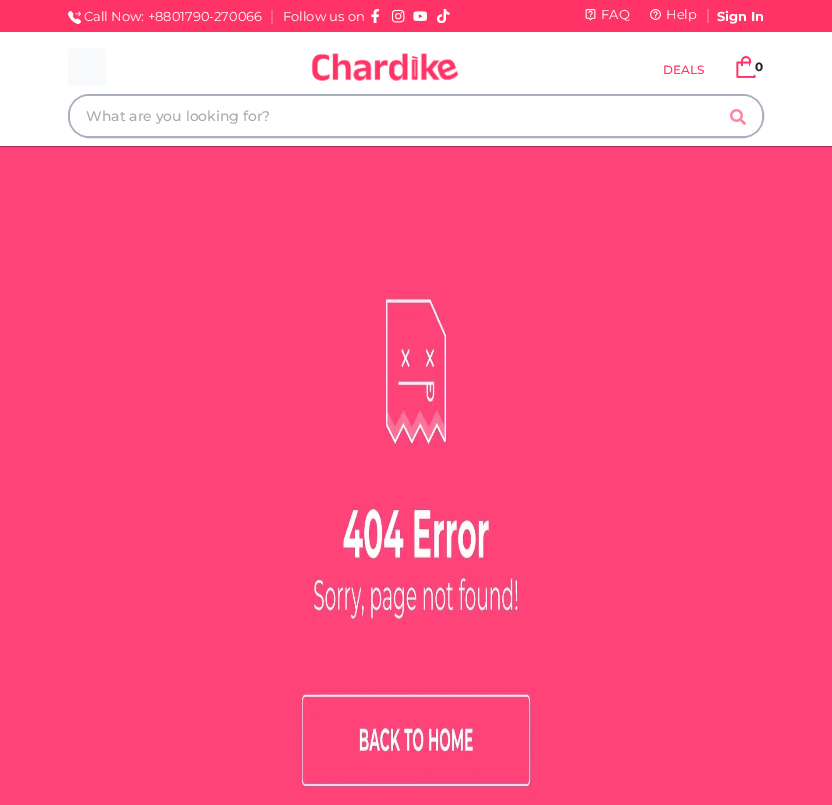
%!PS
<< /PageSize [832 805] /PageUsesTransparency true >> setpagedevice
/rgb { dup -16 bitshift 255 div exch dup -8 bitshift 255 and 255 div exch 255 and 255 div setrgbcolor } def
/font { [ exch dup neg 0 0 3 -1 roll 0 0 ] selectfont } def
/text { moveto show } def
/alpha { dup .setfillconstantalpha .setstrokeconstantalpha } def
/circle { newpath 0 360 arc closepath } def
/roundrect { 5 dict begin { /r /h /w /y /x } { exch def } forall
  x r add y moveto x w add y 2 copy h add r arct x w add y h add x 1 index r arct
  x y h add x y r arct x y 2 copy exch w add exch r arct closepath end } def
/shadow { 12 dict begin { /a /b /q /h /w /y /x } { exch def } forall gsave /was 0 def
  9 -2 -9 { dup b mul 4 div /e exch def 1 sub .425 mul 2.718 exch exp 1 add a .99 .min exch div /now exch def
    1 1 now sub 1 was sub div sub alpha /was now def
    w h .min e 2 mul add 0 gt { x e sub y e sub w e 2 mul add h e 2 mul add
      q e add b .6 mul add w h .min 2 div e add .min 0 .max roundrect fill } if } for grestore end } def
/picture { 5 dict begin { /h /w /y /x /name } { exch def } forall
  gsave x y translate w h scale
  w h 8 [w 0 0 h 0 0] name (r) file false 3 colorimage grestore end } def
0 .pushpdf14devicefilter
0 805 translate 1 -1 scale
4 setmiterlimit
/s1 { /Montserrat-Regular 13 font 16#FFFFFF rgb } def
/s2 { /Montserrat-Bold 13 font 16#FFFFFF rgb } def
/s3 { /Montserrat-Medium 12 font 16#FF3366 rgb } def
/s4 { /Montserrat-Bold 12 font 16#222222 rgb } def
/s5 { /Montserrat-Medium 14 font 16#AAAAAA rgb } def
16#FFFFFF rgb
0 0 832 805 rectfill
(pic11.raw) 0 146 832 659 picture
16#0B0613 rgb
0 0 832 146 0 1 1 shadow
16#FFFFFF rgb
0 32 832 114 rectfill
16#FF3366 rgb
0 0 832 32 rectfill
(pic1.raw) 68 11 13 13 picture
s1
(Call Now: +8801790-270066) 84 21 text
16#FF6088 rgb
271 10 2 14 rectfill
s1
(Follow us on) 283 21 text
(pic2.raw) 371 9 9 14 picture
(pic3.raw) 391 9 14 14 picture
(pic4.raw) 413 11 14 10 picture
(pic5.raw) 436 9 14 14 picture
(pic6.raw) 585 9 11 12 picture
(FAQ) 601 19 text
(pic7.raw) 650 9 11 11 picture
(Help) 666 19 text
16#FF6088 rgb
707 9 2 14 rectfill
s2
(Sign In) 717 21 text
16#F8F9FA rgb
68 48 38 38 4 roundrect fill
(pic8.raw) 311 53 148 28 picture
s3
(DEALS) 663 74 text
(pic9.raw) 736 56 20 22 picture
16#FFFFFF rgb
759 67 9 circle fill
s4
(0) 755 71 text
16#A8AFBD rgb
2 setlinewidth
69 95 694 42 20 roundrect stroke
16#FFFFFF rgb
89 96 moveto 714 96 lineto 714 136 lineto 89 136 lineto 78.5 136 70 127.5 70 117 curveto 70 115 lineto 70 104.5 78.5 96 89 96 curveto closepath fill
s5
(What are you looking for?) 86 121 text
16#FFFFFF rgb
714 96 moveto 743 96 lineto 753.5 96 762 104.5 762 115 curveto 762 117 lineto 762 127.5 753.5 136 743 136 curveto 714 136 lineto closepath fill
(pic10.raw) 730 109 16 16 picture
.poppdf14devicefilter showpage
